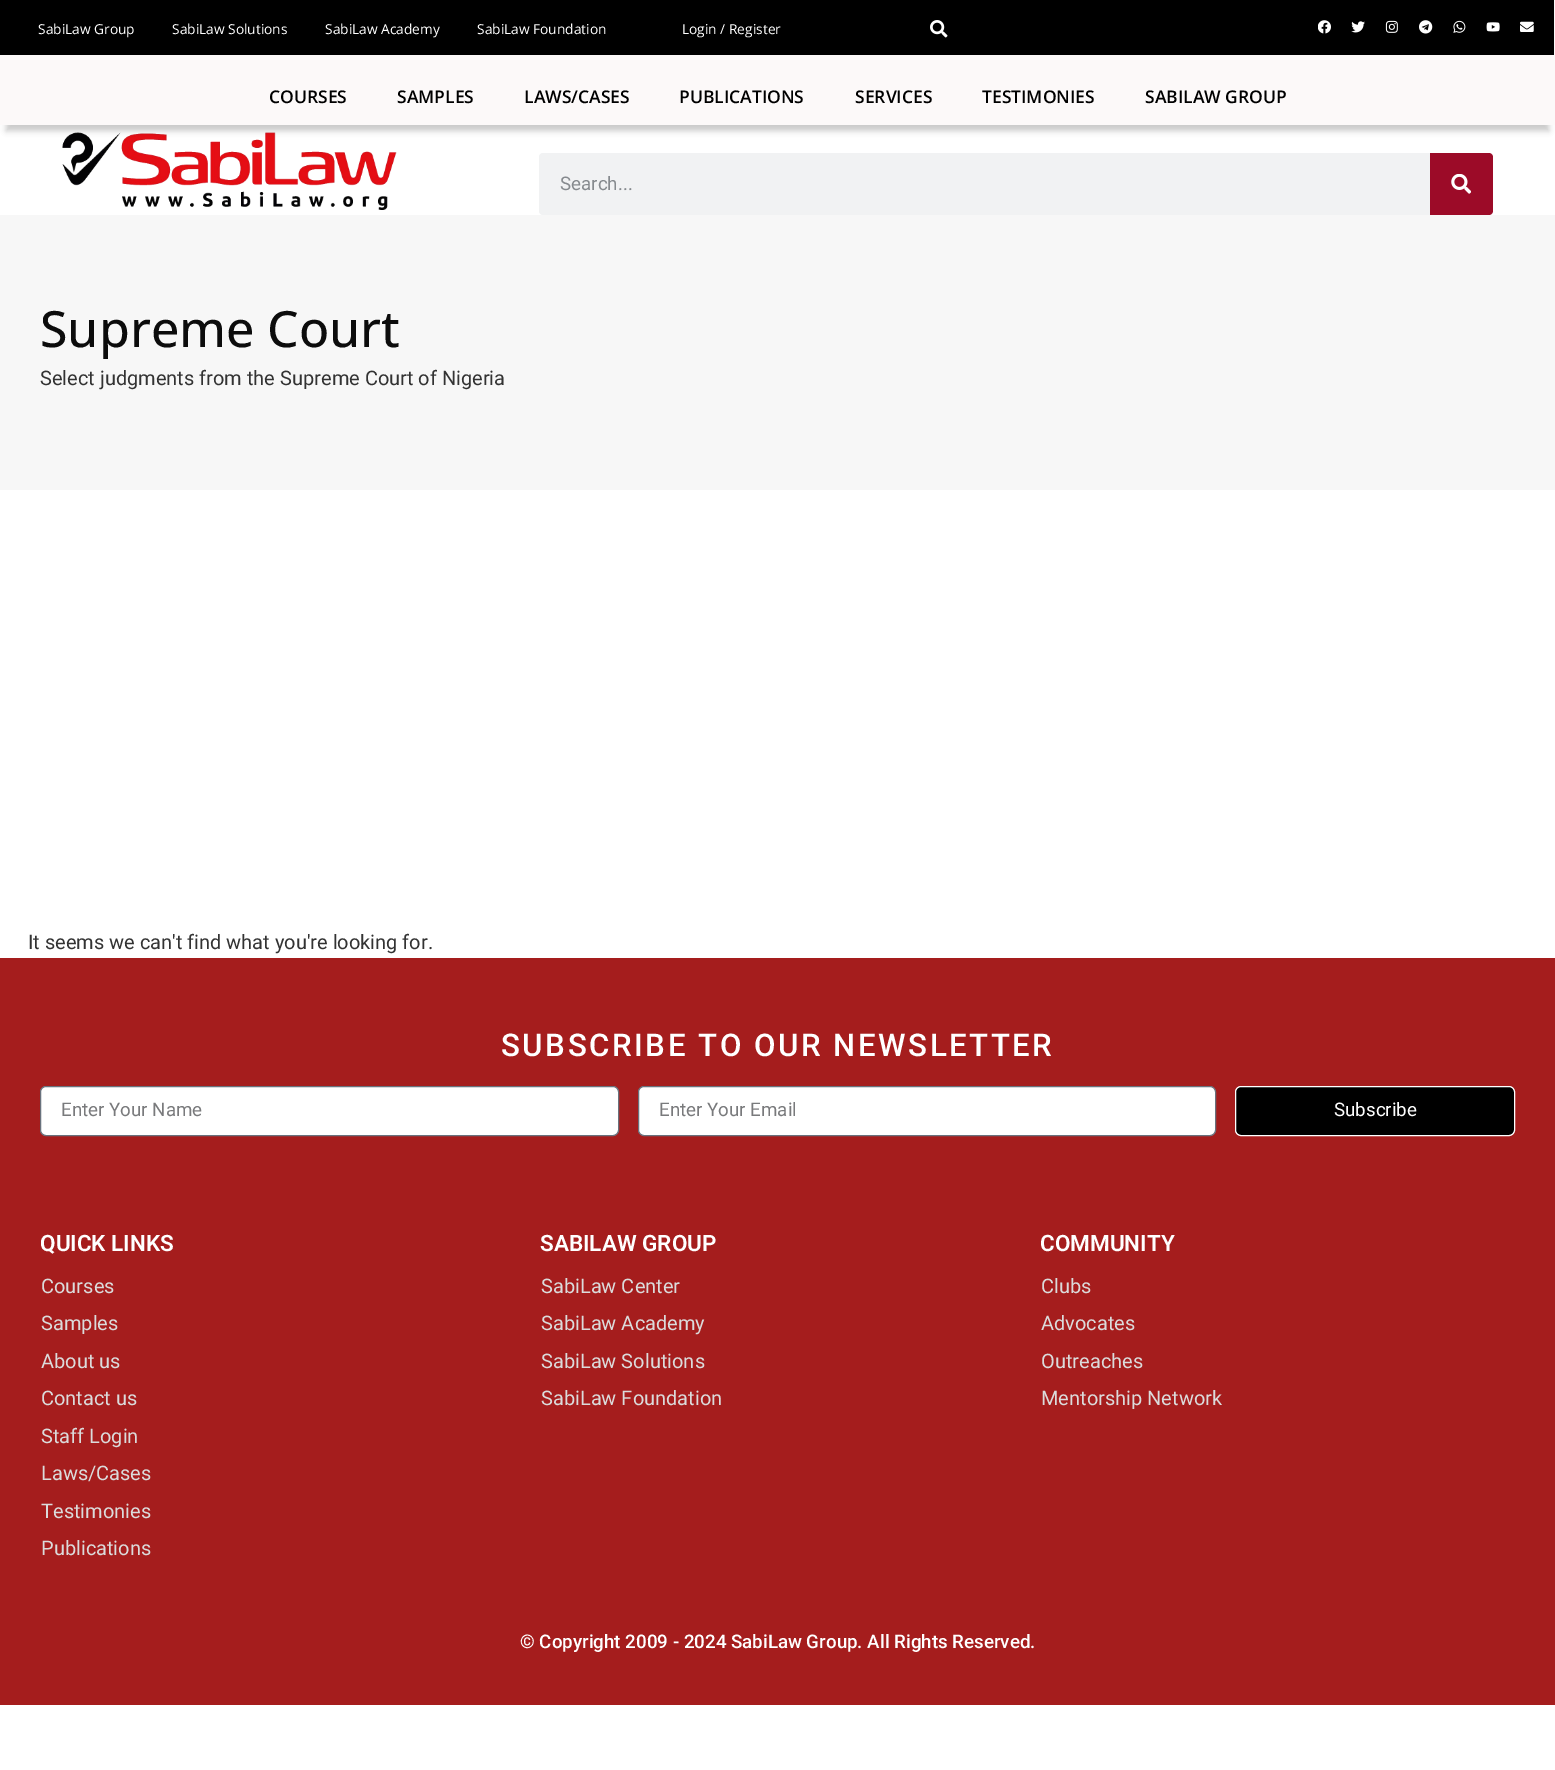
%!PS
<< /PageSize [1555 1770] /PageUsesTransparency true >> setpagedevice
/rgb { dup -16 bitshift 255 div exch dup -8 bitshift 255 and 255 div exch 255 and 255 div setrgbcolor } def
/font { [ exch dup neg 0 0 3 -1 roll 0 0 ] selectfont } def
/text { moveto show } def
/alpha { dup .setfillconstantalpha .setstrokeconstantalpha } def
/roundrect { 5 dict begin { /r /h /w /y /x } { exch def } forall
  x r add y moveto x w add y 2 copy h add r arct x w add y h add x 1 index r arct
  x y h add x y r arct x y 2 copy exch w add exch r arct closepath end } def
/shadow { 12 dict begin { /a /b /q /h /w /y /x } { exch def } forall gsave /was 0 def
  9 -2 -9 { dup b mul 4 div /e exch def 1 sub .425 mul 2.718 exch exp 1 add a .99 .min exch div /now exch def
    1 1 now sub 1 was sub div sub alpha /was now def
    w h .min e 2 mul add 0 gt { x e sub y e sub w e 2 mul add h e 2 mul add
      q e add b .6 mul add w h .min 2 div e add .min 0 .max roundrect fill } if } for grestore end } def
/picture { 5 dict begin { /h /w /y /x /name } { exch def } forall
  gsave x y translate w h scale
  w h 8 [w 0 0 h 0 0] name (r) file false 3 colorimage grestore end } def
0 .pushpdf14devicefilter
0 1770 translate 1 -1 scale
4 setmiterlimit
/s1 { /OpenSans-Regular 13.75 font 16#FFFFFF rgb } def
/s2 { /OpenSans-SemiBold 17.5 font 16#000000 rgb } def
/s3 { /Roboto-Regular 18.75 font 16#868A8E rgb } def
/s4 { /OpenSans-Medium 50 font 16#0C0C0C rgb } def
/s5 { /Roboto-Regular 20 font 16#333333 rgb } def
/s6 { /Roboto-Regular 18.75 font 16#797A7C rgb } def
/s7 { /Roboto-Regular 18.75 font 16#FFFFFF rgb } def
/s8 { /Roboto-SemiBold 22.5 font 16#FFFFFF rgb } def
/s9 { /Roboto-Regular 20 font 16#DBDBDB rgb } def
/s10 { /Roboto-Medium 18.75 font 16#FFFFFF rgb } def
16#FFFFFF rgb
0 0 1555 1770 rectfill
(pic9.raw) 62 132 335 78 picture
16#000000 rgb
6 19 1543 112 0 3 0.21 shadow
16#FCF9F9 rgb
0 0 1555 125 rectfill
16#000000 rgb
0 0 1554 55 rectfill
s1
(SabiLaw Group) 38 34 text
(SabiLaw Solutions) 172 34 text
(SabiLaw Academy) 325 34 text
(SabiLaw Foundation) 477 34 text
(Login / Register) 682 34 text
(pic1.raw) 930 20 18 18 picture
(pic2.raw) 1318 20 13 14 picture
(pic3.raw) 1351 21 14 12 picture
(pic4.raw) 1385 20 13 13 picture
(pic5.raw) 1419 20 14 14 picture
(pic6.raw) 1453 20 13 13 picture
(pic7.raw) 1486 22 14 10 picture
(pic8.raw) 1520 21 14 11 picture
s2
(COURSES) 269 103 text
(SAMPLES) 397 103 text
(LAWS/CASES) 524 103 text
(PUBLICATIONS) 679 103 text
(SERVICES) 855 103 text
(TESTIMONIES) 982 103 text
(SABILAW GROUP) 1145 103 text
16#F1F2F3 rgb
539 153 954 62 4 roundrect fill
s3
(Search...) 560 190 text
16#9C0B28 rgb
1430 153 moveto 1489 153 lineto 1491 153 1493 155 1493 157 curveto 1493 211 lineto 1493 213 1491 215 1489 215 curveto 1430 215 lineto closepath fill
(pic10.raw) 1451 174 20 20 picture
16#F7F7F7 rgb
0 215 1555 275 rectfill
s4
(Supreme Court) 40 347 text
s5
(Select judgments from the Supreme Court of Nigeria) 40 385 text
(It seems we can't find what you're looking for.) 28 949 text
16#A51D1D rgb
0 958 1555 747 rectfill
/Roboto-Medium 31.25 font
16#FFFFFF rgb
501 1056 moveto 2.5 0 (SUBSCRIBE TO OUR NEWSLETTER) ashow
40.5 1086.5 578 49 5.5 roundrect gsave fill grestore
16#69727D rgb
stroke
s6
(Enter Your Name) 61 1116 text
16#FFFFFF rgb
638.5 1086.5 577 49 5.5 roundrect gsave fill grestore
16#69727D rgb
stroke
s6
(Enter Your Email) 659 1116 text
16#000000 rgb
1235.5 1086.5 279 49 5.5 roundrect gsave fill grestore
16#FFFFFF rgb
stroke
(Subscribe) 1334 1116 text
s8
(QUICK LINKS) 40 1251 text
s9
(Courses) 41 1293 text
(Samples) 41 1330 text
(About us) 41 1368 text
(Contact us) 41 1405 text
(Staff Login) 41 1443 text
(Laws/Cases) 41 1480 text
(Testimonies) 41 1518 text
(Publications) 41 1555 text
s8
(SABILAW GROUP) 540 1251 text
s9
(SabiLaw Center) 541 1293 text
(SabiLaw Academy) 541 1330 text
(SabiLaw Solutions) 541 1368 text
(SabiLaw Foundation) 541 1405 text
s8
(COMMUNITY) 1040 1251 text
s9
(Clubs) 1041 1293 text
(Advocates) 1041 1330 text
(Outreaches) 1041 1368 text
(Mentorship Network) 1041 1405 text
s10
(© Copyright 2009 - 2024 SabiLaw Group. All Rights Reserved.) 520 1648 text
.poppdf14devicefilter showpage
